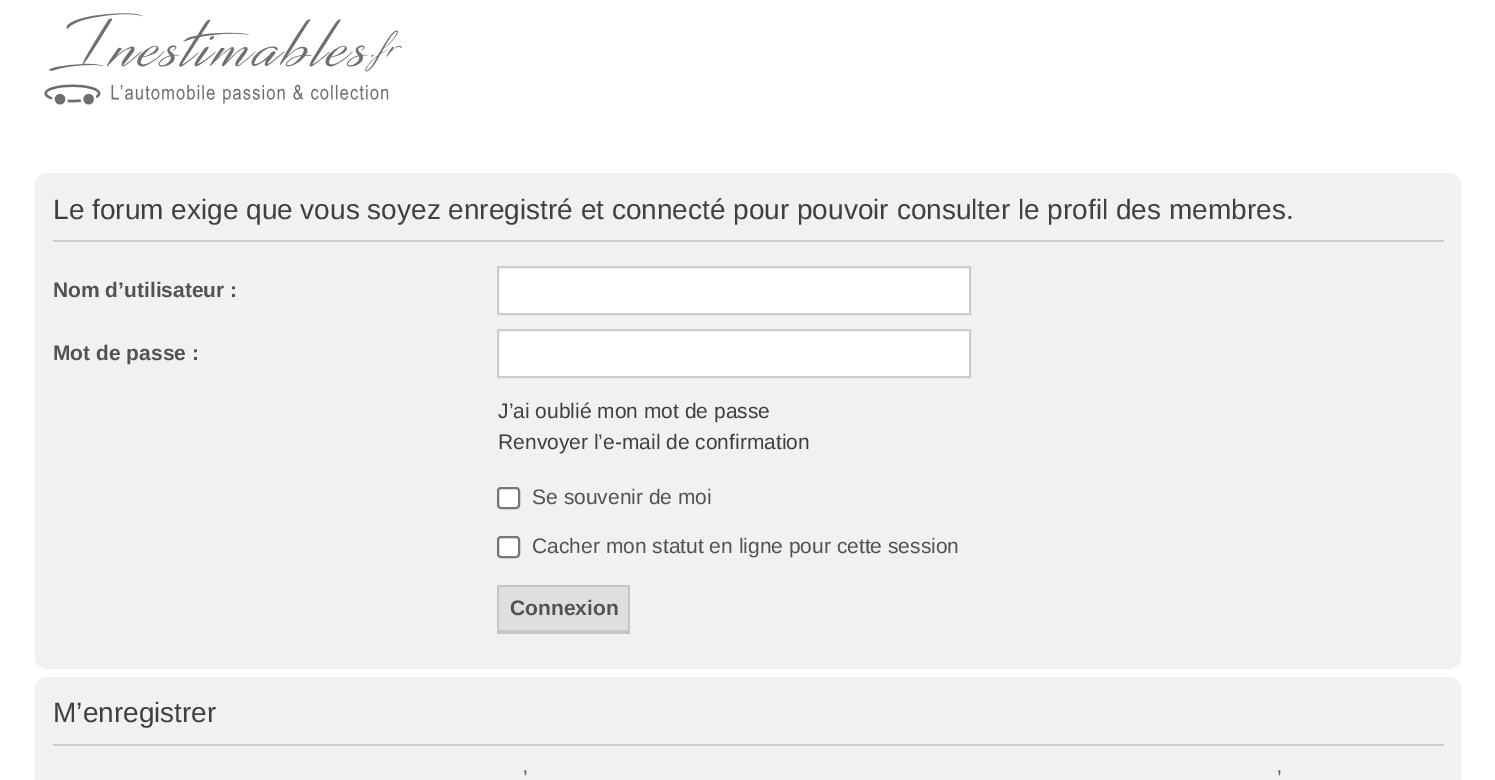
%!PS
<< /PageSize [1495 780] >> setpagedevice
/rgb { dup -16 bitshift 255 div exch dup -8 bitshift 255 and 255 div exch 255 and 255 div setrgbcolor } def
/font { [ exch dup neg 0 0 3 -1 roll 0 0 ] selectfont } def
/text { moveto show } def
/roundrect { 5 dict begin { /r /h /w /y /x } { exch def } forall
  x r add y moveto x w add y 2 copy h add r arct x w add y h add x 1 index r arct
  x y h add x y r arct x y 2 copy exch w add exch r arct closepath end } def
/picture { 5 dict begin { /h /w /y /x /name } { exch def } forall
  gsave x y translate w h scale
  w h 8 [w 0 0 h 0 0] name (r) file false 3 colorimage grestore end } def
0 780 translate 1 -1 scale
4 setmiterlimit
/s1 { /LiberationSans-Regular 28 font 16#3F3F3F rgb } def
/s2 { /LiberationSans-Bold 21 font 16#525252 rgb } def
/s3 { /LiberationSans-Regular 21 font 16#3F3F3F rgb } def
/s4 { /LiberationSans-Regular 21 font 16#525252 rgb } def
16#FFFFFF rgb
0 0 1495 780 rectfill
(pic1.raw) 44 13 358 92 picture
16#F1F1F1 rgb
35 173 1426 496 12 roundrect fill
16#CCCCCC rgb
53 240 1391 2 rectfill
s1
(Le forum exige que vous soyez enregistré et connecté pour pouvoir consulter le profil des membres.) 53 219 text
s2
(Nom d’utilisateur :) 53 297 text
16#FFFFFF rgb
498 267 moveto 970 267 lineto 970 314 lineto 498 314 lineto closepath gsave fill grestore
16#CCCCCC rgb
2 setlinewidth
stroke
s2
(Mot de passe :) 53 360 text
16#FFFFFF rgb
498 330 moveto 970 330 lineto 970 377 lineto 498 377 lineto closepath gsave fill grestore
16#CCCCCC rgb
stroke
s3
(J’ai oublié mon mot de passe) 498 418 text
(Renvoyer l’e-mail de confirmation) 498 449 text
16#FFFFFF rgb
498 488 21 20 3 roundrect gsave fill grestore
16#767676 rgb
stroke
s4
(Se souvenir de moi) 532 504 text
16#FFFFFF rgb
498 537 21 20 3 roundrect gsave fill grestore
16#767676 rgb
stroke
s4
(Cacher mon statut en ligne pour cette session) 532 553 text
16#DFDFDF rgb
499 587 129 43 rectfill
16#C5C5C5 rgb
497 585 133 2 rectfill
628 585 2 49 rectfill
497 630 133 4 rectfill
497 585 2 49 rectfill
s2
(Connexion) 510 615 text
16#F1F1F1 rgb
35 677 1426 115 12 roundrect fill
16#CCCCCC rgb
53 744 1391 2 rectfill
s1
(M’enregistrer) 53 722 text
s4
(’) 523 785 text
(’) 1277 785 text
showpage
